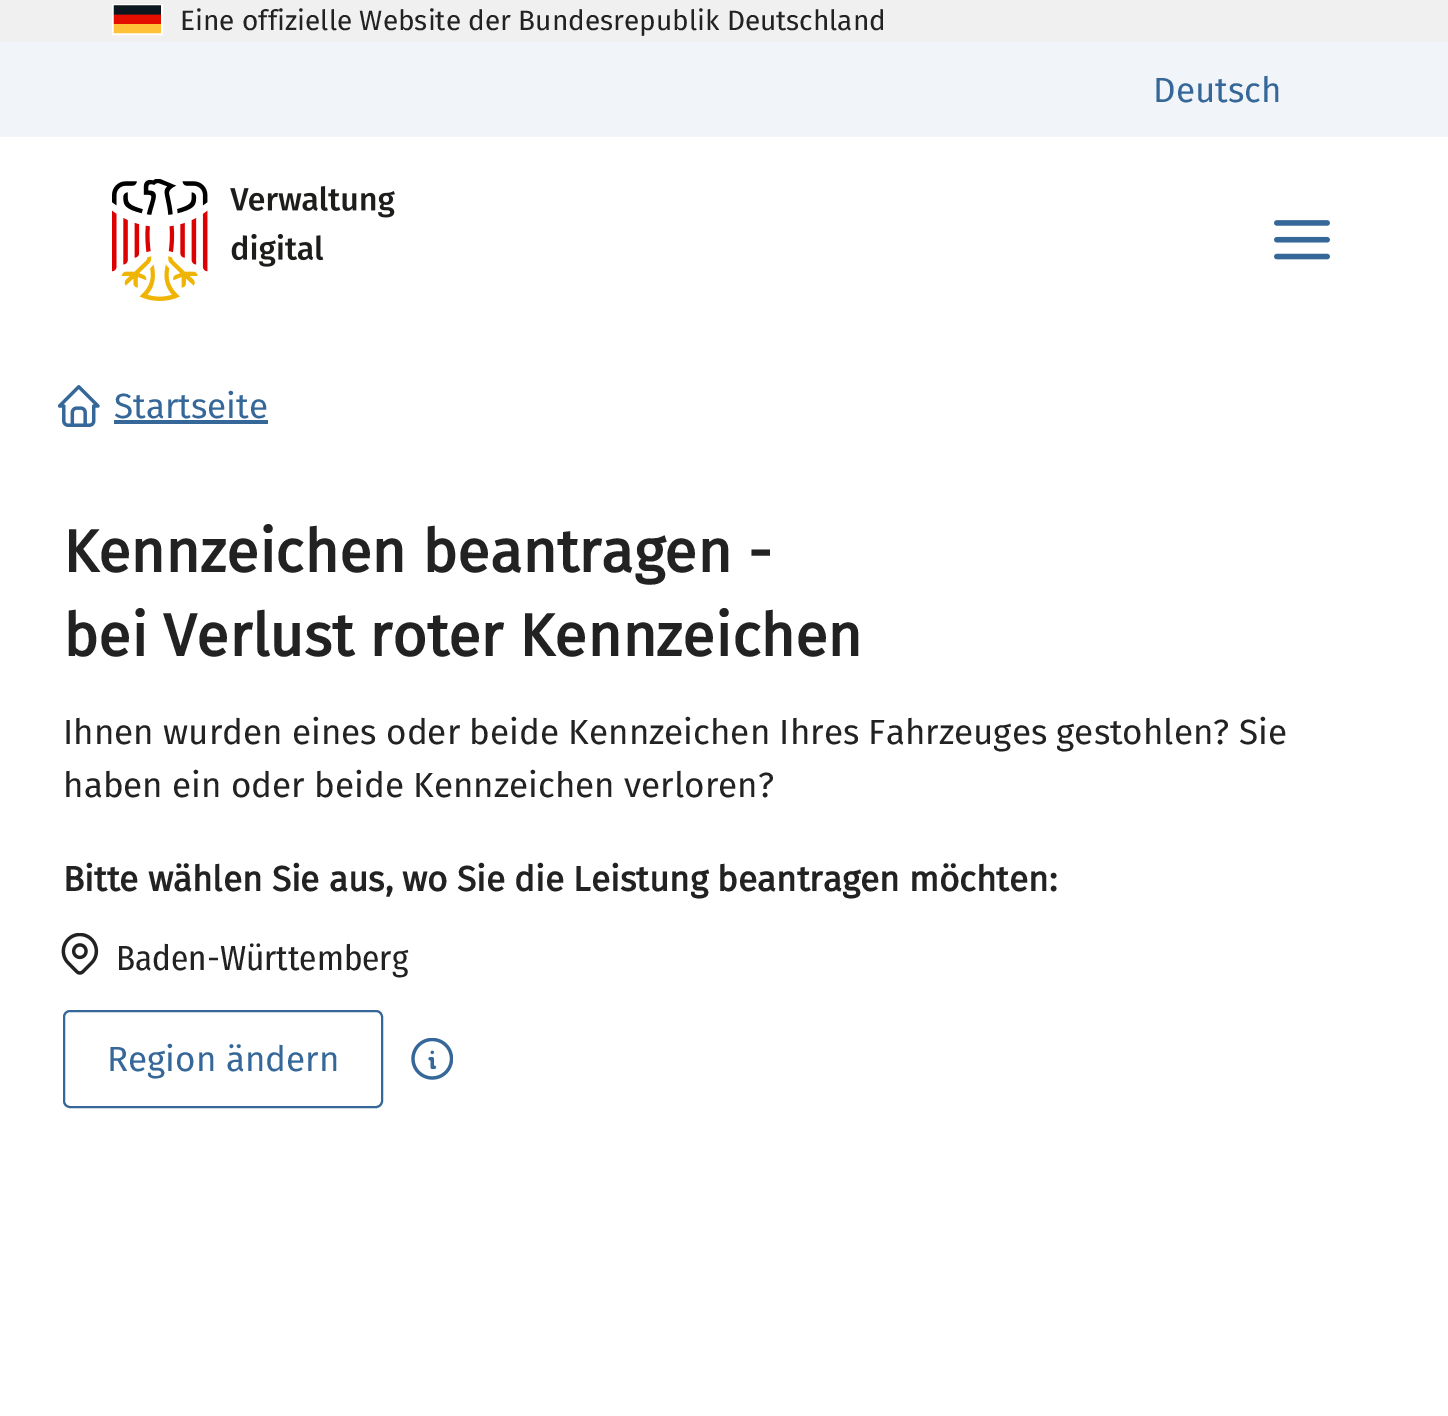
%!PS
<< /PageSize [1448 1416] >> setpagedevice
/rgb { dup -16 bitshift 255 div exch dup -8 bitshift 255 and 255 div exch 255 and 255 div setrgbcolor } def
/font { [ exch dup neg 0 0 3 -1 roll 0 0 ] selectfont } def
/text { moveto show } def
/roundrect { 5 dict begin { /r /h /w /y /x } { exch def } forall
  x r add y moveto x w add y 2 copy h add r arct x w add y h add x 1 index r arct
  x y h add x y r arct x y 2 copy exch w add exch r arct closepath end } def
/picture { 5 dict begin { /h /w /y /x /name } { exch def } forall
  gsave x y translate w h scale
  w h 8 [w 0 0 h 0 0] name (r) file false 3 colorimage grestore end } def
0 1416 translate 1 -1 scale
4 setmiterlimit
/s1 { /FiraSans-Regular 28 font 16#222222 rgb } def
/s2 { /FiraSans-Regular 35 font 16#356799 rgb } def
/s3 { /FiraSans-Bold 59.5 font 16#222222 rgb } def
/s4 { /FiraSans-Regular 35 font 16#222222 rgb } def
/s5 { /FiraSans-Bold 35 font 16#222222 rgb } def
/s6 { /FiraSansCondensed-Regular 35 font 16#222222 rgb } def
16#FFFFFF rgb
0 0 1448 1416 rectfill
16#F0F0F0 rgb
0 0 1448 42 rectfill
16#FFFFFF rgb
2 setlinewidth
113 5 49 29 rectstroke
(pic1.raw) 113 5 48 29 picture
s1
(Eine offizielle Website der Bundesrepublik Deutschland) 180 30 text
16#F1F4F8 rgb
0 42 1448 95 rectfill
s2
(Deutsch) 1153 102 text
(pic2.raw) 112 179 283 122 picture
(pic3.raw) 1274 220 56 40 picture
(pic4.raw) 58 385 42 42 picture
(Startseite) 114 418 text
114 420 154 4 rectfill
s3
(Kennzeichen beantragen -) 63 572 text
(bei Verlust roter Kennzeichen) 63 656 text
s4
(Ihnen wurden eines oder beide Kennzeichen Ihres Fahrzeuges gestohlen? Sie) 63 744 text
(haben ein oder beide Kennzeichen verloren?) 63 797 text
s5
(Bitte wählen Sie aus, wo Sie die Leistung beantragen möchten:) 63 891 text
(pic5.raw) 61 933 38 42 picture
s6
(Baden-Württemberg) 116 970 text
16#356799 rgb
64 1011 318 96 6 roundrect stroke
s2
(Region ändern) 107 1071 text
(pic6.raw) 411 1038 42 42 picture
showpage
